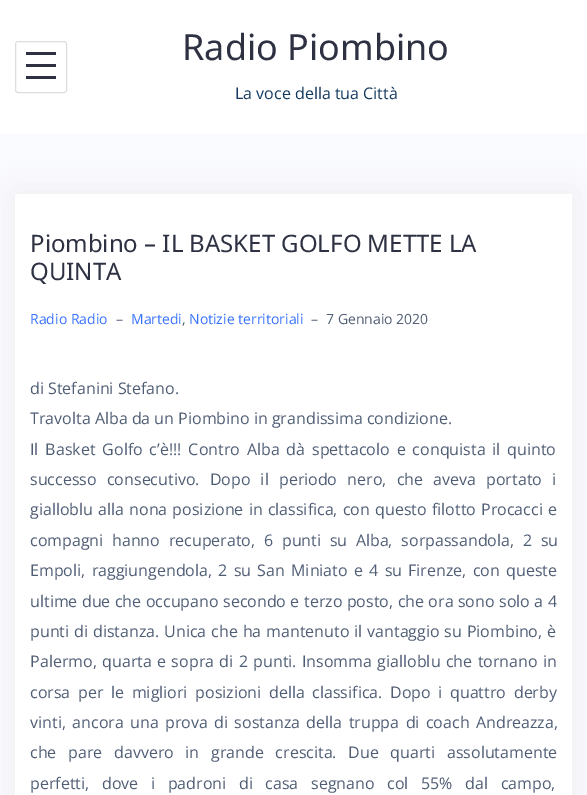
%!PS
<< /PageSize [587 795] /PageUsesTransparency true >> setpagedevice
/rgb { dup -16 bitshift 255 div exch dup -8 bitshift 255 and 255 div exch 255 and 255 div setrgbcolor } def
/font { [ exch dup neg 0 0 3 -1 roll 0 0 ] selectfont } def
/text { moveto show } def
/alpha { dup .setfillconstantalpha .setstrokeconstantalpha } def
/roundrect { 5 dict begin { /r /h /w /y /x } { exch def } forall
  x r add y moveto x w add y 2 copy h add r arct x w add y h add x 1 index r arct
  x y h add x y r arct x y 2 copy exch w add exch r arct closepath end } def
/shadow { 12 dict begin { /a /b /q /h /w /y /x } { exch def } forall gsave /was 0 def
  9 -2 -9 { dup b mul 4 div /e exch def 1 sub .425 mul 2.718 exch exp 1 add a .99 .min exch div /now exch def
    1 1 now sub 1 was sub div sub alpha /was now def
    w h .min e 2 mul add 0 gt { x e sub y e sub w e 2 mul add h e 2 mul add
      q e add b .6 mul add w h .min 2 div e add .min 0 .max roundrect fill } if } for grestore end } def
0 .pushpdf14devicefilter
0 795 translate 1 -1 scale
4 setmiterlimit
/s1 { /NotoSans-Regular 36 font 16#2D3142 rgb } def
/s2 { /OpenSans-Regular 16 font 16#153A5E rgb } def
/s3 { /NotoSans-Regular 24 font 16#2D3142 rgb } def
/s4 { /OpenSans-Regular 14 font 16#3772FE rgb } def
/s5 { /OpenSans-Regular 14 font 16#4F5D75 rgb } def
/s6 { /OpenSans-Regular 16 font 16#4F5D75 rgb } def
16#FAFBFF rgb
0 0 587 795 rectfill
16#FFFFFF rgb
0 0 587 134 rectfill
16#DDDDDD rgb
15.5 41.5 51 51 2.5 roundrect stroke
16#2D3142 rgb
26 52 30 3 rectfill
26 64 30 3 rectfill
26 76 30 3 rectfill
s1
(Radio Piombino) 182 60 text
s2
(La voce della tua Città) 235 99 text
16#7A7A7A rgb
15 194 557 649 0 16 0.1 shadow
16#FFFFFF rgb
15 194 557 601 rectfill
s3
(Piombino – IL BASKET GOLFO METTE LA) 30 252 text
(QUINTA) 30 280 text
s4
(Radio Radio) 30 324 text
s5
(–) 116 324 text
s4
(Martedi) 131 324 text
(Notizie territoriali) 189 324 text
s5
(–) 311 324 text
(7 Gennaio 2020) 326 324 text
(,) 182 324 text
s6
(di Stefanini Stefano.) 30 394 text
(Travolta Alba da un Piombino in grandissima condizione.) 30 424 text
30 455 moveto 2.75 0 32 (Il Basket Golfo c’è!!! Contro Alba dà spettacolo e conquista il quinto) widthshow
30 485 moveto 6 0 32 (successo consecutivo. Dopo il periodo nero, che aveva portato i) widthshow
30 515 moveto 1 0 32 (gialloblu alla nona posizione in classifica, con questo filotto Procacci e) widthshow
30 546 moveto 4.5 0 32 (compagni hanno recuperato, 6 punti su Alba, sorpassandola, 2 su) widthshow
30 576 moveto 2.1 0 32 (Empoli, raggiungendola, 2 su San Miniato e 4 su Firenze, con queste) widthshow
30 607 moveto 0.25 0 32 (ultime due che occupano secondo e terzo posto, che ora sono solo a 4) widthshow
30 637 moveto 0.75 0 32 (punti di distanza. Unica che ha mantenuto il vantaggio su Piombino, è) widthshow
30 667 moveto 1.25 0 32 (Palermo, quarta e sopra di 2 punti. Insomma gialloblu che tornano in) widthshow
30 698 moveto 3.5 0 32 (corsa per le migliori posizioni della classifica. Dopo i quattro derby) widthshow
30 728 moveto 2.25 0 32 (vinti, ancora una prova di sostanza della truppa di coach Andreazza,) widthshow
30 758 moveto 7.5 0 32 (che pare davvero in grande crescita. Due quarti assolutamente) widthshow
30 789 moveto 8.5 0 32 (perfetti, dove i padroni di casa segnano col 55% dal campo,) widthshow
.poppdf14devicefilter showpage
